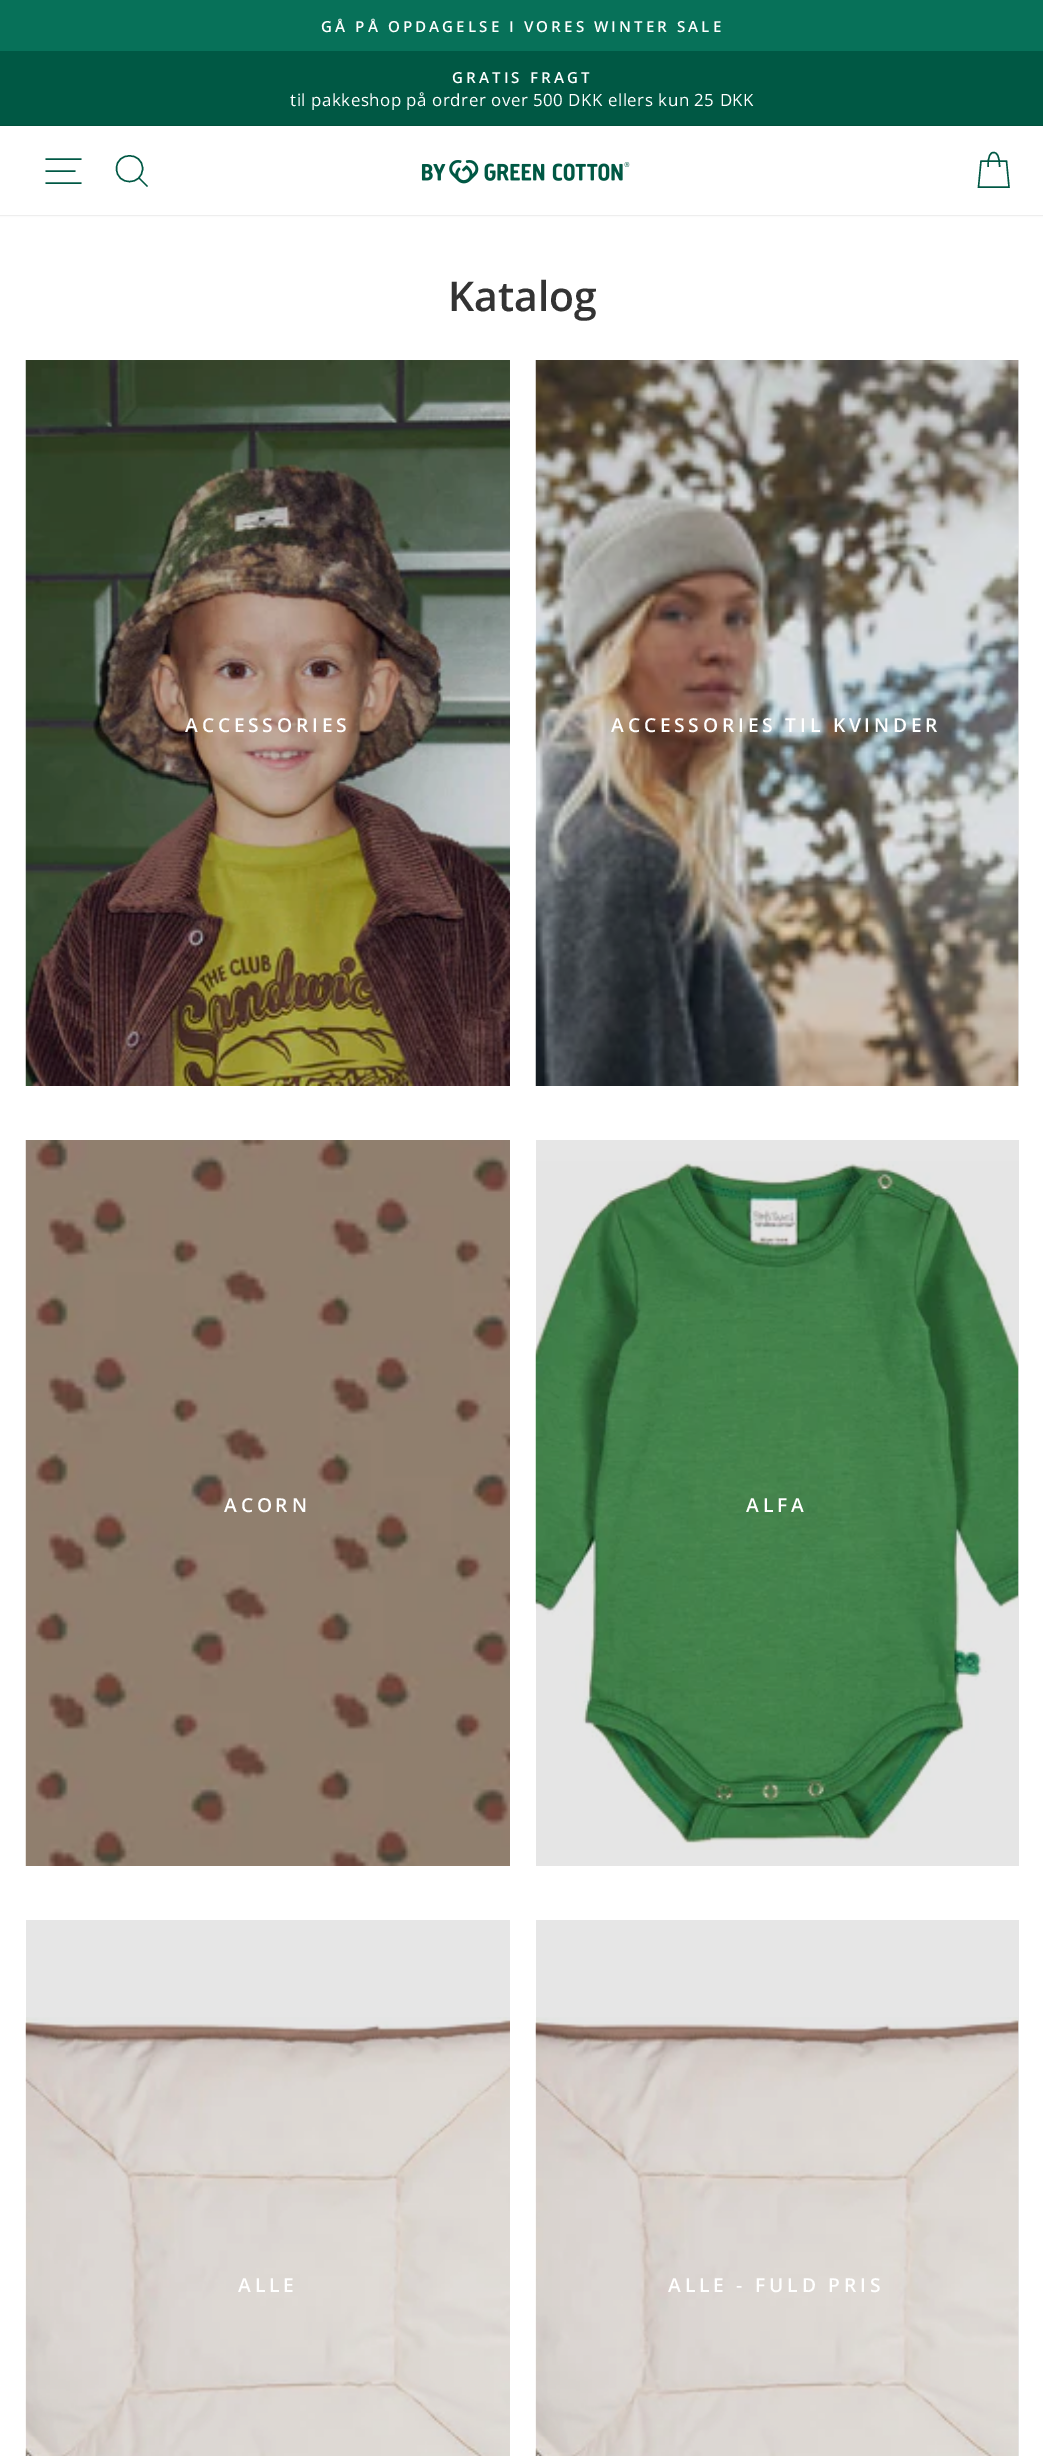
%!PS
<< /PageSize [1043 2456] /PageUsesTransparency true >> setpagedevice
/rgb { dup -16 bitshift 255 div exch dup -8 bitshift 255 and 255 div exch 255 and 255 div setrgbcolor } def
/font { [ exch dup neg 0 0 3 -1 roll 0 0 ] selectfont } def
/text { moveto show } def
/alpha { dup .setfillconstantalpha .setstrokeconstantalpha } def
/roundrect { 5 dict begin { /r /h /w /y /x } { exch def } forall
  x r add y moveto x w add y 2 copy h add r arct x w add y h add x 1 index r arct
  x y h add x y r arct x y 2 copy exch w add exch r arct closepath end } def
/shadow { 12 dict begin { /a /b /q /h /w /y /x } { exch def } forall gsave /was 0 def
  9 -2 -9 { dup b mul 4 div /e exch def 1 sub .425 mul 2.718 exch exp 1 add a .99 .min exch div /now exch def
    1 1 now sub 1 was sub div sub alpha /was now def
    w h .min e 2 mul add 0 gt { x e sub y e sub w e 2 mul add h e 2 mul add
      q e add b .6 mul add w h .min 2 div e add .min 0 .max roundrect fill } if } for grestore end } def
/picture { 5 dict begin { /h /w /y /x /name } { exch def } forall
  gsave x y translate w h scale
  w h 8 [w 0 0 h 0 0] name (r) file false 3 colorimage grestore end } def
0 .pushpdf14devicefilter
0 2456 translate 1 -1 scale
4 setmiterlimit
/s1 { /OpenSans-SemiBold 41 font 16#333333 rgb } def
16#FFFFFF rgb
0 0 1043 2456 rectfill
16#E6E6E6 rgb
536 1920 483 536 rectfill
26 1920 484 97 rectfill
536 1140 483 726 rectfill
1018 360 1 726 rectfill
16#077159 rgb
0 0 1043 51 rectfill
/OpenSans-SemiBold 15.2 font
16#FFFFFF rgb
321 32 moveto 3.05 0 (GÅ PÅ OPDAGELSE I VORES WINTER SALE) ashow
16#005844 rgb
0 51 1043 75 rectfill
16#FFFFFF rgb
452 83 moveto 3.05 0 (GRATIS FRAGT) ashow
/OpenSans-Regular 16.9 font
290 106 moveto 0.52 0 (til pakkeshop på ordrer over 500 DKK ellers kun 25 DKK) ashow
16#000000 rgb
0 126 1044 89 0 1 0.2 shadow
16#FFFFFF rgb
0 126 1043 89 rectfill
16#005844 rgb
1.4 setlinewidth
45.5 159 moveto 81.5 159 lineto 45.5 171 moveto 75.5 171 lineto 45.5 183 moveto 81.5 183 lineto stroke
142.5 168.5 moveto 142.5 186 116.5 186 116.5 168.5 curveto 116.5 151.5 142.5 151.5 142.5 168.5 curveto closepath 147.5 186.5 moveto 139 178 lineto stroke
(pic1.raw) 421 160 209 24 picture
988 167 moveto 988 155.5 990.5 152.5 993.5 152.5 curveto 997 152.5 999.5 155.5 999.5 167 curveto 981 161 moveto 1006.5 161 lineto 1009 187 lineto 978.5 187 lineto closepath stroke
s1
(Katalog) 448 311 text
(pic2.raw) 25 360 485 726 picture
/OpenSans-SemiBold 19.25 font
16#FFFFFF rgb
185 732 moveto 3.8 0 (ACCESSORIES) ashow
(pic3.raw) 535 360 484 726 picture
611 732 moveto 3.8 0 (ACCESSORIES TIL KVINDER) ashow
(pic4.raw) 25 1140 485 726 picture
224 1512 moveto 3.8 0 (ACORN) ashow
(pic5.raw) 535 1161 484 689 picture
746 1512 moveto 3.8 0 (ALFA) ashow
(pic6.raw) 25 2017 485 439 picture
238 2292 moveto 3.8 0 (ALLE) ashow
(pic7.raw) 535 2017 484 439 picture
668 2292 moveto 3.8 0 (ALLE - FULD PRIS) ashow
.poppdf14devicefilter showpage
